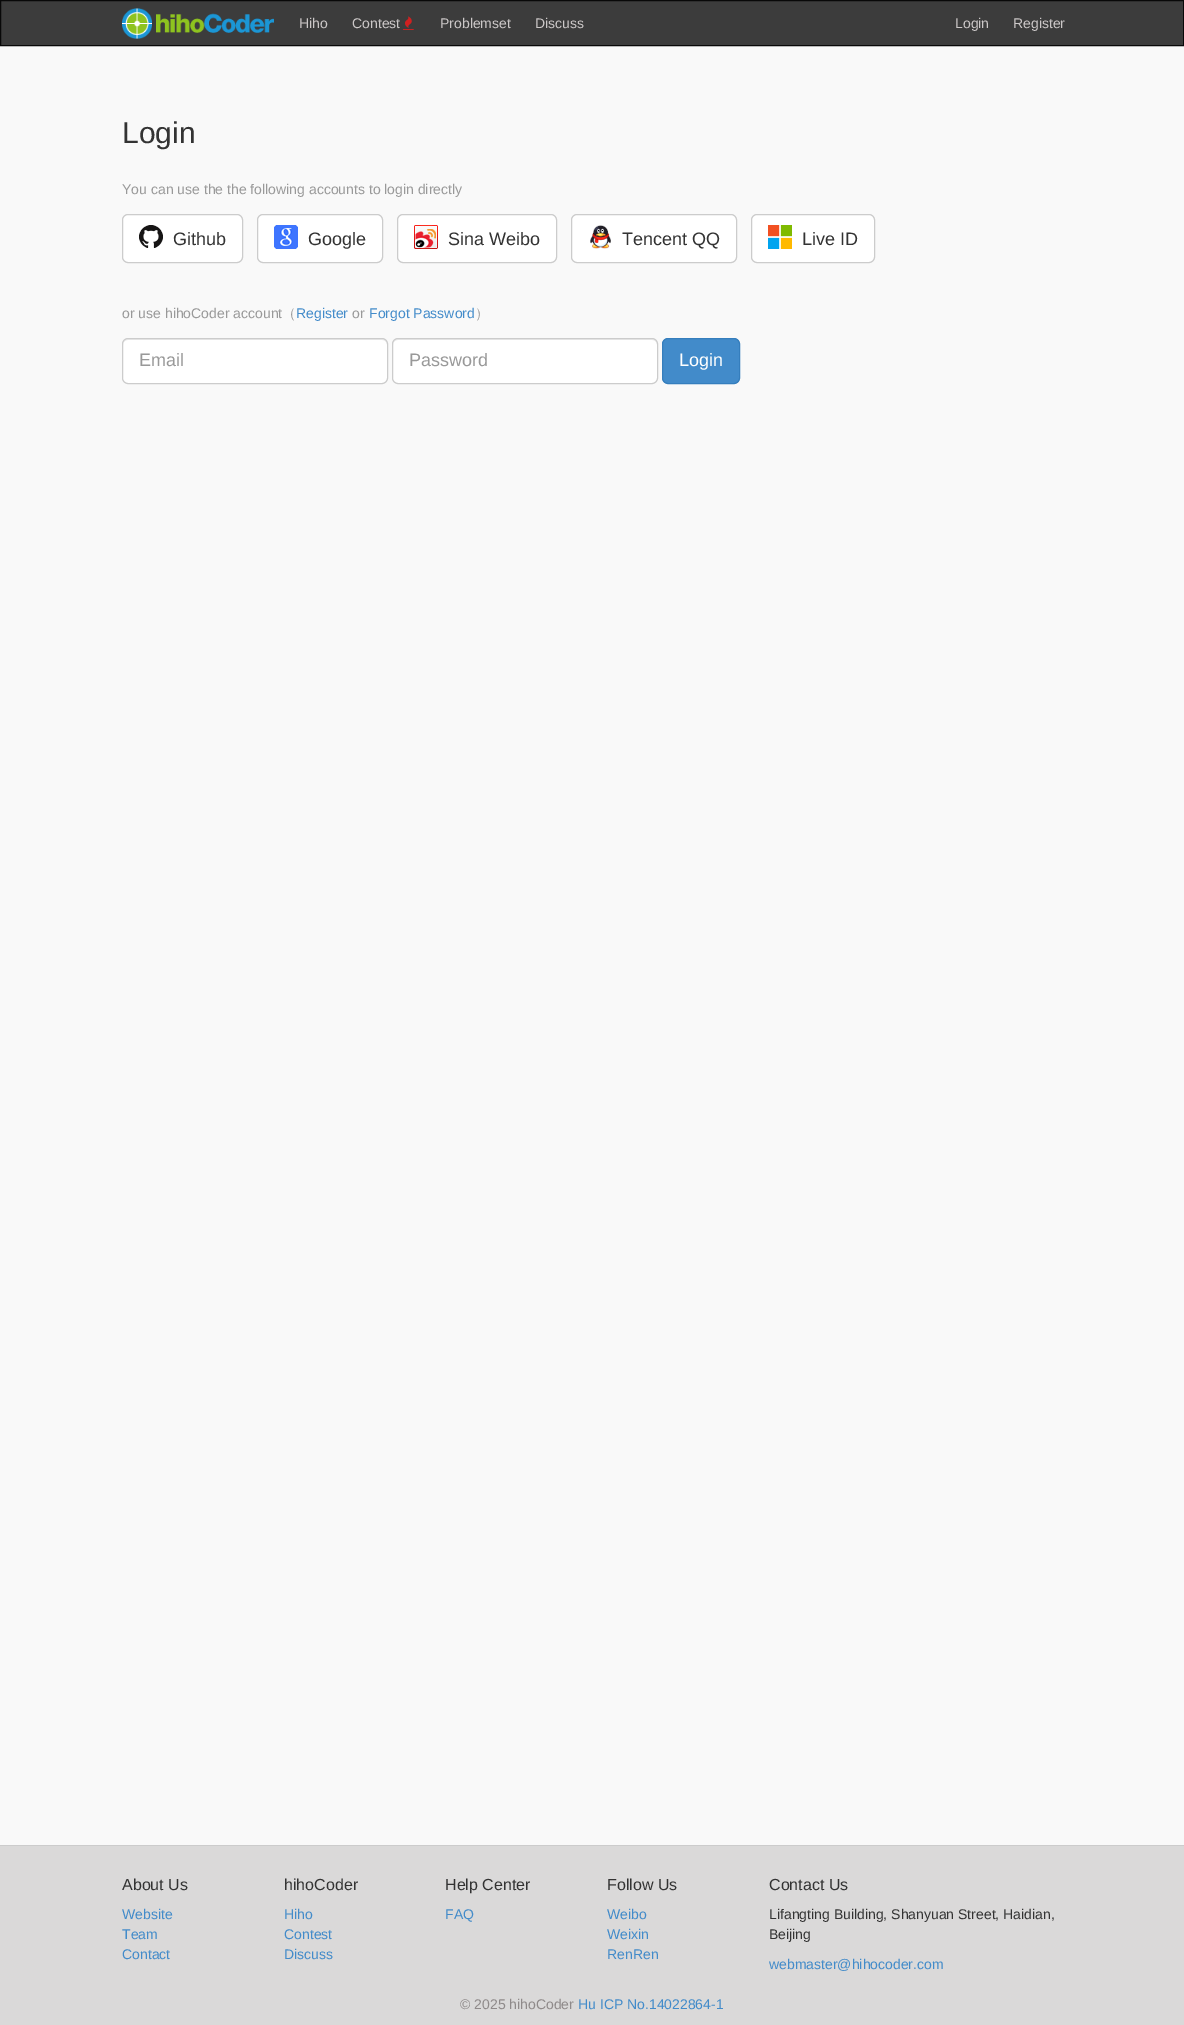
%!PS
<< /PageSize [1184 2025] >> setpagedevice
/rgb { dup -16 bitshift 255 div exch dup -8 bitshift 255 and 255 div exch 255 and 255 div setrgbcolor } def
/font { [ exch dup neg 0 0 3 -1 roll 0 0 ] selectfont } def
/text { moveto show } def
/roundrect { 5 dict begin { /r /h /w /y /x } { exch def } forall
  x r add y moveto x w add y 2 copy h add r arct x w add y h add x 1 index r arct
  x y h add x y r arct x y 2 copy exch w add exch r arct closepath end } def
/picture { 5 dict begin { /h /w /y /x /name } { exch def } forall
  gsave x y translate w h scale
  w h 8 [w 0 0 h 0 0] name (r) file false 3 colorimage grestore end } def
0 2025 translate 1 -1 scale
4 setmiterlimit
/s1 { /LiberationSans-Regular 14 font 16#CCC8C8 rgb } def
/s2 { /LiberationSans-Regular 30 font 16#333333 rgb } def
/s3 { /LiberationSans-Regular 14 font 16#999999 rgb } def
/s4 { /LiberationSans-Regular 18 font 16#333333 rgb } def
/s5 { /WenQuanYiZenHei-Medium 14 font 16#999999 rgb } def
/s6 { /LiberationSans-Regular 14 font 16#428BCA rgb } def
/s7 { /LiberationSans-Regular 18 font 16#999999 rgb } def
/s8 { /LiberationSans-Regular 18 font 16#FFFFFF rgb } def
/s9 { /LiberationSans-Regular 16 font 16#333333 rgb } def
/s10 { /LiberationSans-Regular 14 font 16#333333 rgb } def
/s11 { /LiberationSans-Regular 14 font 16#8F8A8A rgb } def
16#F9F9F9 rgb
0 0 1184 2025 rectfill
16#3C3C3C rgb
0.5 0.5 moveto 1183.5 0.5 lineto 1183.5 45.5 lineto 0.5 45.5 lineto closepath gsave fill grestore
16#080808 rgb
stroke
(pic1.raw) 122 8 152 31 picture
s1
(Hiho) 299 28 text
(Contest) 352 28 text
(pic2.raw) 403 16 11 14 picture
(Problemset) 440 28 text
(Discuss) 535 28 text
(Login) 955 28 text
(Register) 1013 28 text
s2
(Login) 122 143 text
s3
(You can use the the following accounts to login directly) 122 194 text
16#FFFFFF rgb
122.5 214.5 120 48 5.5 roundrect gsave fill grestore
16#CCCCCC rgb
stroke
(pic3.raw) 139 225 24 23 picture
s4
(Github) 173 245 text
16#FFFFFF rgb
257.5 214.5 125 48 5.5 roundrect gsave fill grestore
16#CCCCCC rgb
stroke
(pic4.raw) 274 225 24 24 picture
s4
(Google) 308 245 text
16#FFFFFF rgb
397.5 214.5 159 48 5.5 roundrect gsave fill grestore
16#CCCCCC rgb
stroke
(pic5.raw) 414 225 24 24 picture
s4
(Sina Weibo) 448 245 text
16#FFFFFF rgb
571.5 214.5 165 48 5.5 roundrect gsave fill grestore
16#CCCCCC rgb
stroke
(pic6.raw) 590 225 21 24 picture
s4
(Tencent QQ) 622 245 text
16#FFFFFF rgb
751.5 214.5 123 48 5.5 roundrect gsave fill grestore
16#CCCCCC rgb
stroke
(pic7.raw) 768 225 24 24 picture
s4
(Live ID) 802 245 text
s3
(or use hihoCoder account) 122 318 text
s5
(（) 282 318 text
s6
(Register) 296 318 text
s3
(or) 352 318 text
s6
(Forgot Password) 369 318 text
s5
(）) 475 318 text
16#FFFFFF rgb
122 338 266 46 6 roundrect fill
16#ECECEC rgb
128 340 moveto 382 340 lineto 385 340 387 342 387 345 curveto 387 342 385 339 382 339 curveto 128 339 lineto 125 339 123 342 123 345 curveto 123 342 125 340 128 340 curveto closepath fill
16#CCCCCC rgb
122.5 338.5 265 45 5.5 roundrect stroke
s7
(Email) 139 366 text
16#FFFFFF rgb
392 338 266 46 6 roundrect fill
16#ECECEC rgb
398 340 moveto 652 340 lineto 655 340 657 342 657 345 curveto 657 342 655 339 652 339 curveto 398 339 lineto 395 339 393 342 393 345 curveto 393 342 395 340 398 340 curveto closepath fill
16#CCCCCC rgb
392.5 338.5 265 45 5.5 roundrect stroke
s7
(Password) 409 366 text
16#428BCA rgb
662.5 338.5 77 45 5.5 roundrect gsave fill grestore
16#357EBD rgb
stroke
s8
(Login) 679 366 text
16#DAD9D9 rgb
0 1846 1184 179 rectfill
16#CCCCCC rgb
0 1845 1184 1 rectfill
s9
(About Us) 122 1890 text
s6
(Website) 122 1919 text
(Team) 122 1939 text
(Contact) 122 1959 text
s9
(hihoCoder) 284 1890 text
s6
(Hiho) 284 1919 text
(Contest) 284 1939 text
(Discuss) 284 1959 text
s9
(Help Center) 445 1890 text
s6
(FAQ) 445 1919 text
s9
(Follow Us) 607 1890 text
s6
(Weibo) 607 1919 text
(Weixin) 607 1939 text
(RenRen) 607 1959 text
s9
(Contact Us) 769 1890 text
s10
(Lifangting Building, Shanyuan Street, Haidian,) 769 1919 text
(Beijing) 769 1939 text
s6
(webmaster@hihocoder.com) 769 1969 text
s11
(© 2025 hihoCoder) 460 2009 text
s6
(Hu ICP No.14022864-1) 578 2009 text
showpage
